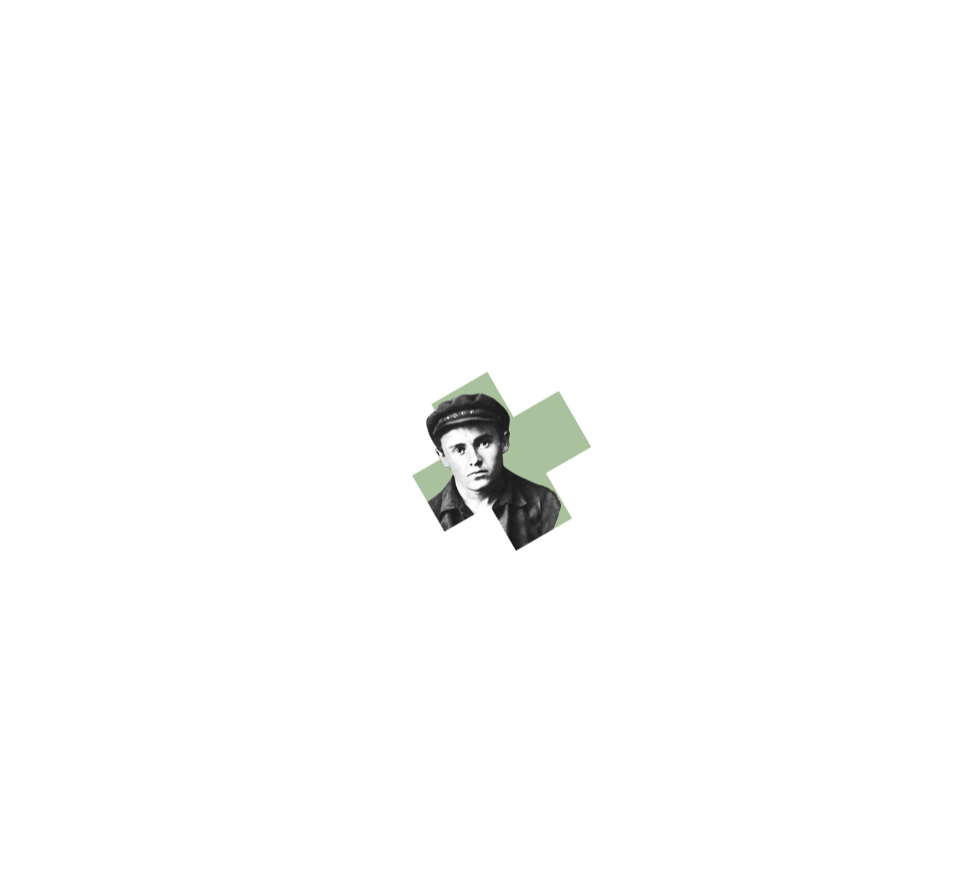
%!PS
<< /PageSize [973 892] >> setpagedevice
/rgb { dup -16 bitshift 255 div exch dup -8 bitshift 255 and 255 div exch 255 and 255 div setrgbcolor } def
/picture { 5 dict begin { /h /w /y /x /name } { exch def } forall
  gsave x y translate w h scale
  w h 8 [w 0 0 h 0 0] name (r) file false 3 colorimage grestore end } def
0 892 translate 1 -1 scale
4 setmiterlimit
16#FFFFFF rgb
0 0 973 892 rectfill
(pic1.raw) 412 371 179 180 picture
showpage
